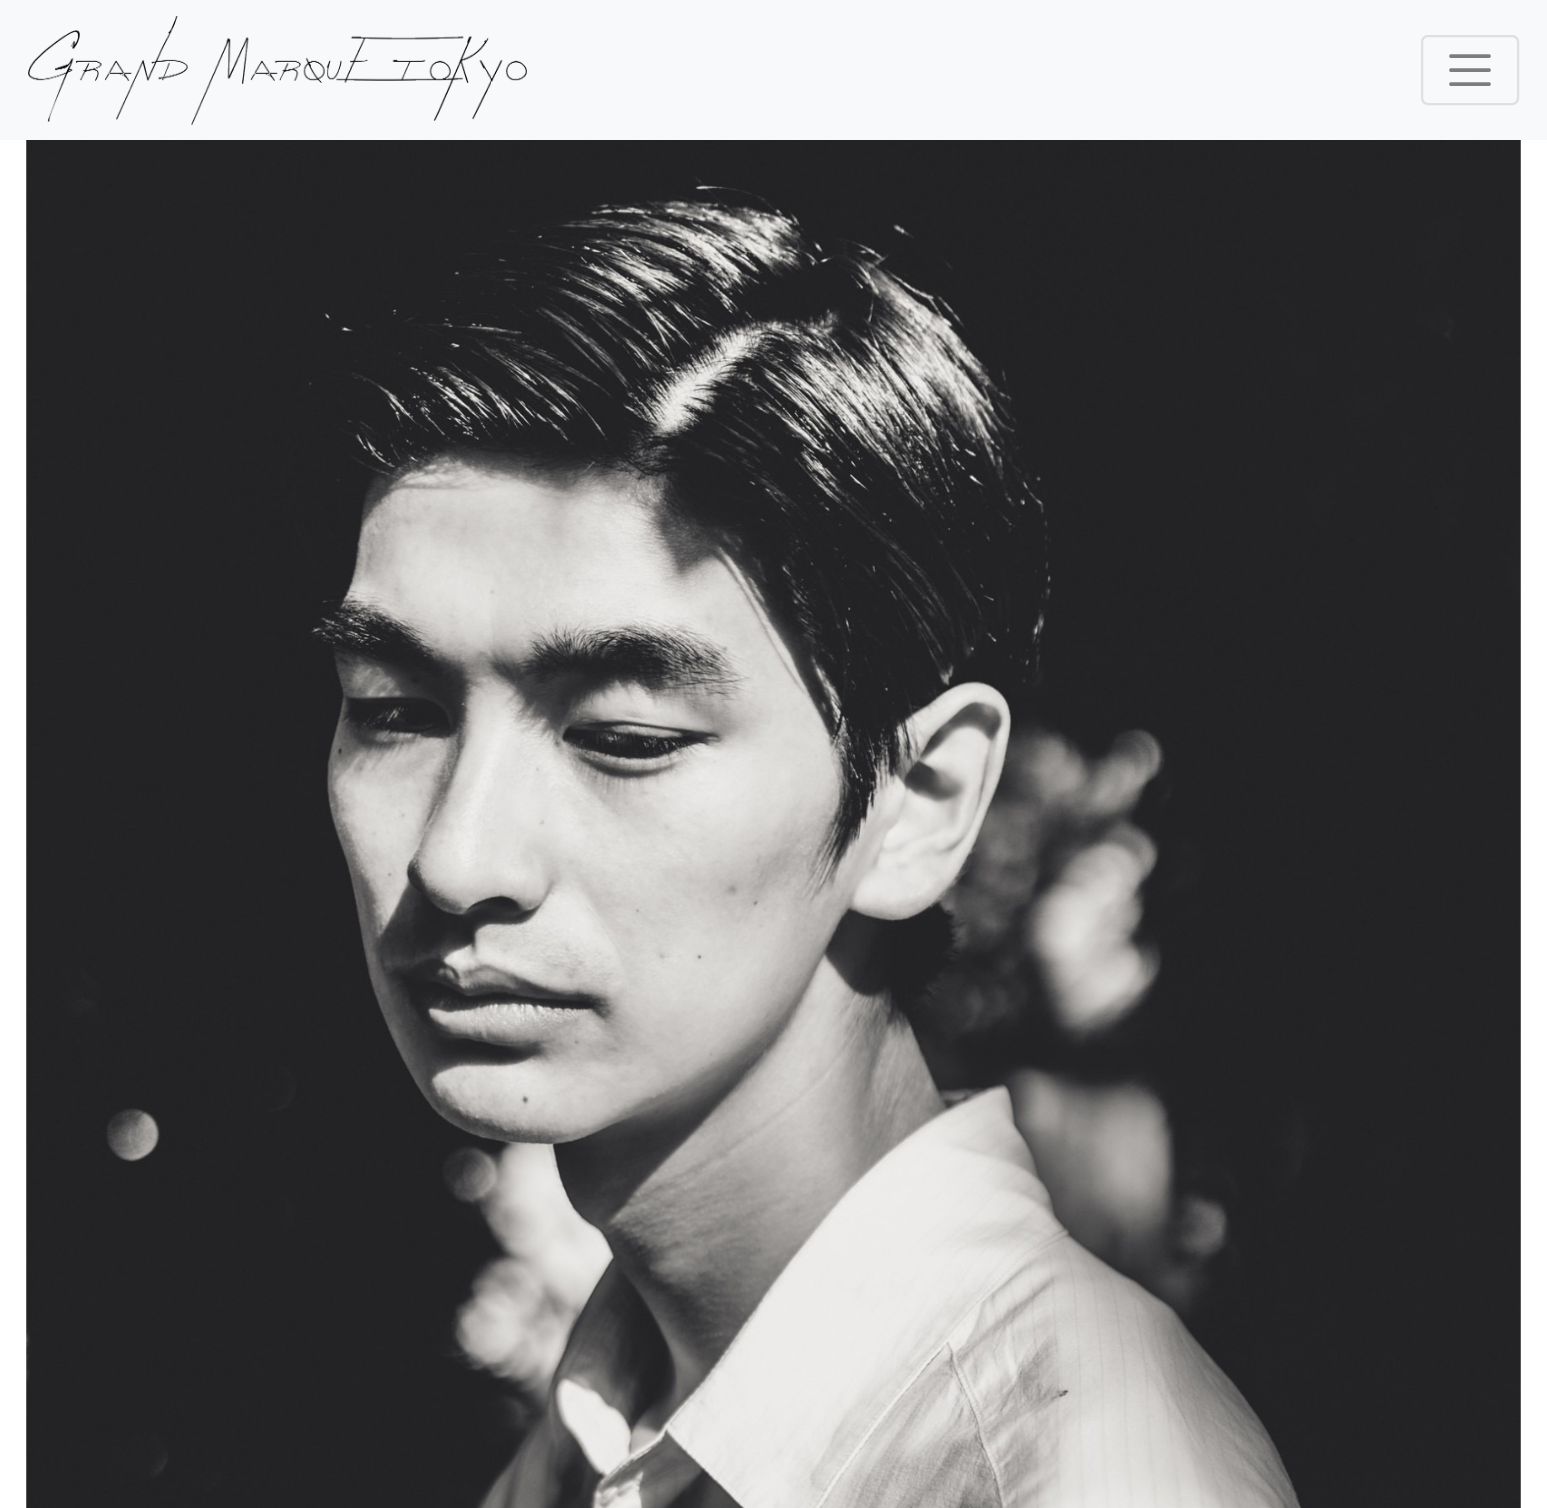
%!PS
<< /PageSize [1547 1508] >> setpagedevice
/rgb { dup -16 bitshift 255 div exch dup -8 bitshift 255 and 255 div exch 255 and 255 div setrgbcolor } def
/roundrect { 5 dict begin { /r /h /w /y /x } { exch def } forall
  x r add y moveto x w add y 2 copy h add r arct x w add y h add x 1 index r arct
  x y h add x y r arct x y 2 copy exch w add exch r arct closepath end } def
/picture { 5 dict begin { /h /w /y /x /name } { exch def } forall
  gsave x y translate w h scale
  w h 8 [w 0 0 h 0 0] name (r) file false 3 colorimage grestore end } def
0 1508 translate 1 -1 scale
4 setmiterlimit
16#FFFFFF rgb
0 0 1547 1508 rectfill
16#F8F9FA rgb
0 0 1547 140 rectfill
(pic1.raw) 28 16 499 109 picture
16#DFE0E1 rgb
2 setlinewidth
1422 36 96 68 6 roundrect stroke
16#7C7D7D rgb
3.5 setlinewidth
1 setlinecap
1451 56 moveto 1489 56 lineto 1451 70 moveto 1489 70 lineto 1451 84 moveto 1489 84 lineto stroke
(pic2.raw) 26 140 1495 1368 picture
showpage
